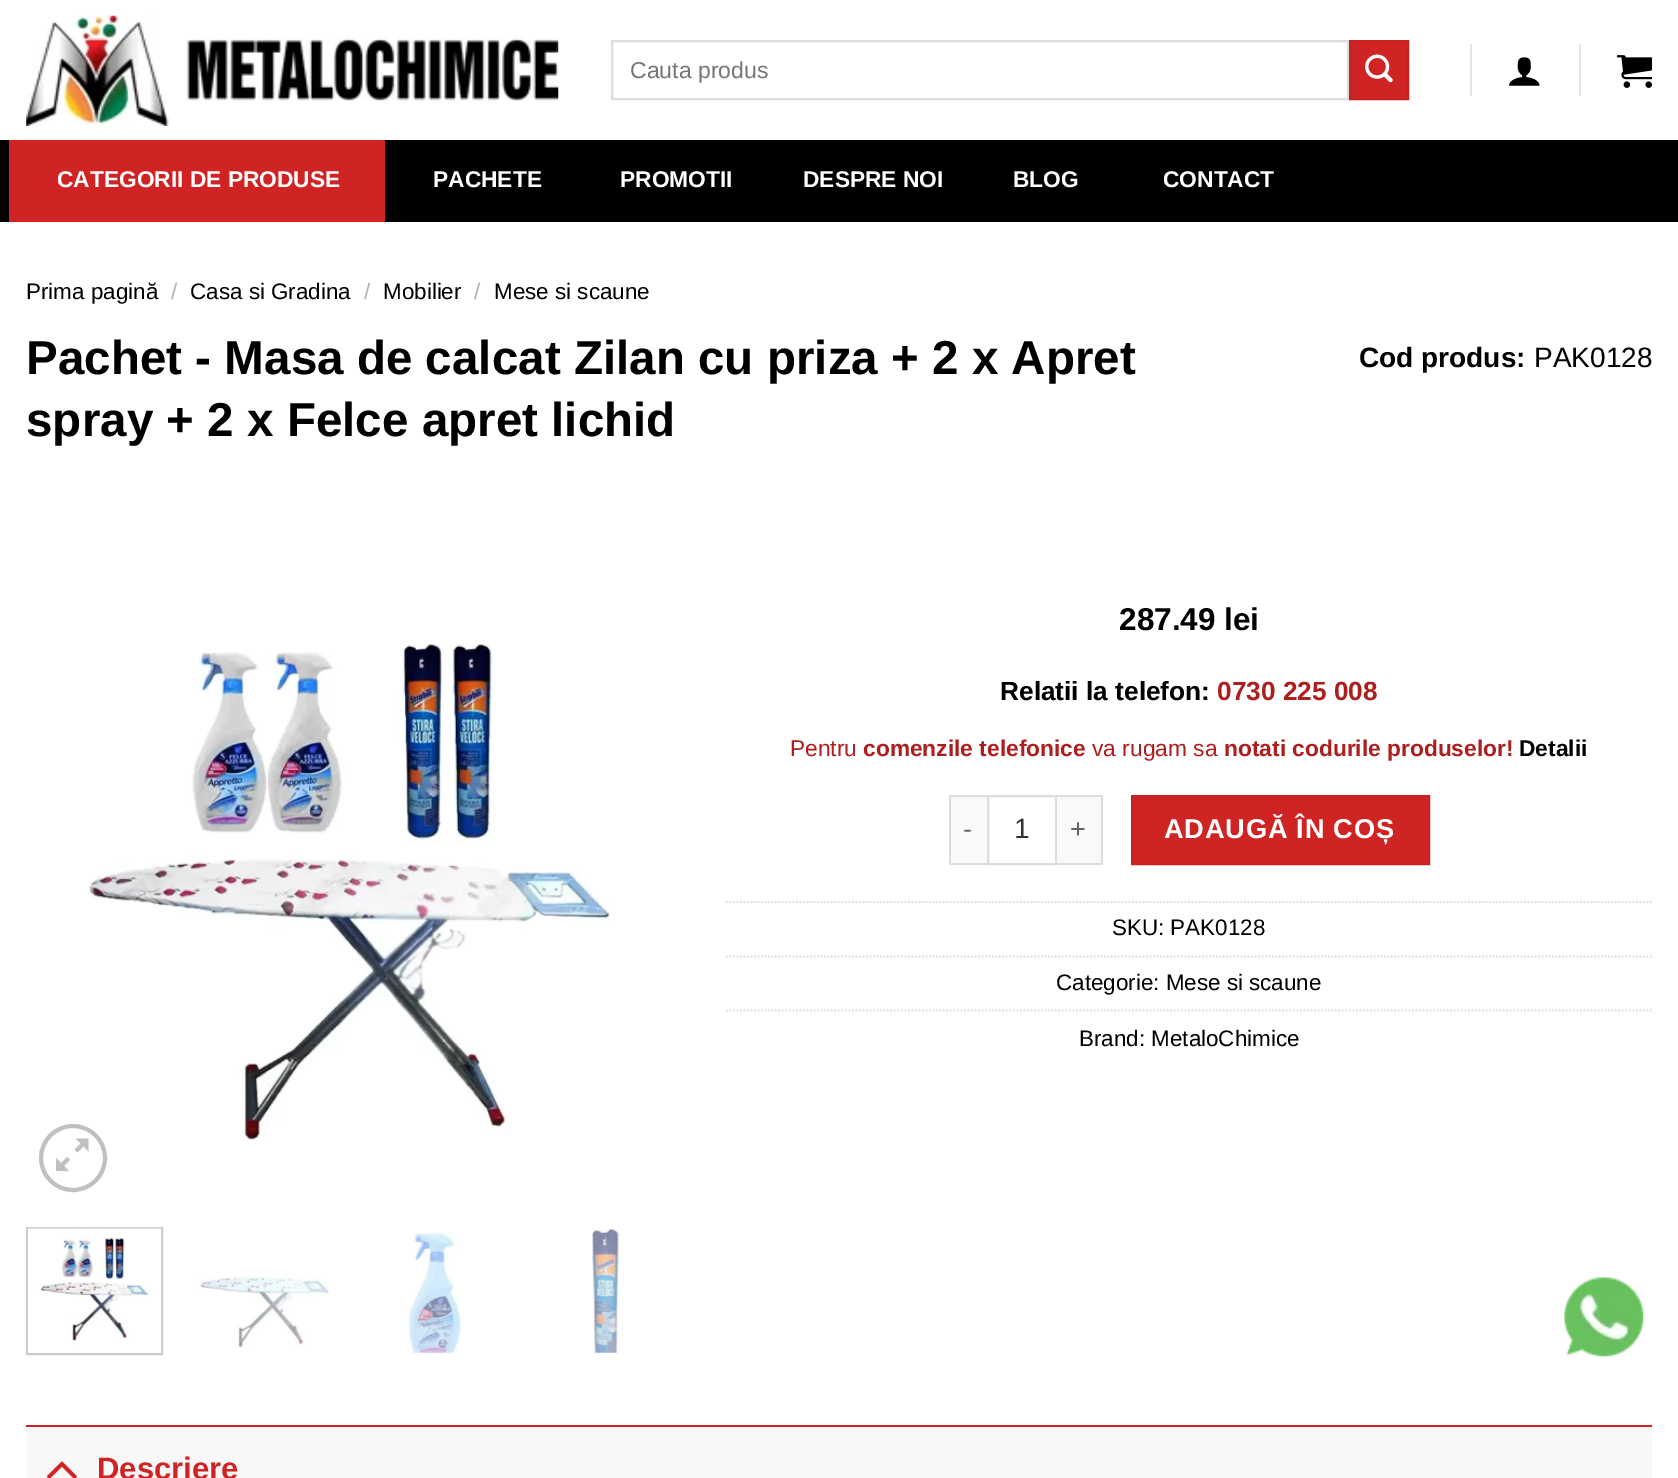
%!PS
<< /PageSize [1678 1478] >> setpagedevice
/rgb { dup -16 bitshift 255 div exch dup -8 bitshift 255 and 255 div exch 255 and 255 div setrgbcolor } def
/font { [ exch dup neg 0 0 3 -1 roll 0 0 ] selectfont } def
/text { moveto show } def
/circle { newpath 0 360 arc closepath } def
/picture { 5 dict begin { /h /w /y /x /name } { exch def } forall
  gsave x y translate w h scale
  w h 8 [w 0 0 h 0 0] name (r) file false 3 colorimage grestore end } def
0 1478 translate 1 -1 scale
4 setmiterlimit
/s1 { /LiberationSans-Regular 23 font 16#757575 rgb } def
/s2 { /LiberationSans-Bold 22.75 font 16#FFFFFF rgb } def
/s3 { /LiberationSans-Regular 22.4 font 16#000000 rgb } def
/s4 { /LiberationSans-Regular 22.4 font 16#B2B2B2 rgb } def
/s5 { /LiberationSans-Bold 47.6 font 16#000000 rgb } def
/s6 { /LiberationSans-Bold 28 font 16#000000 rgb } def
/s7 { /LiberationSans-Regular 28 font 16#000000 rgb } def
/s8 { /LiberationSans-Bold 31.5 font 16#000000 rgb } def
/s9 { /LiberationSans-Bold 26.25 font 16#000000 rgb } def
/s10 { /LiberationSans-Bold 26.25 font 16#AD1F1F rgb } def
/s11 { /LiberationSans-Regular 22.75 font 16#AD1F1F rgb } def
/s12 { /LiberationSans-Bold 22.75 font 16#AD1F1F rgb } def
/s13 { /LiberationSans-Bold 22.75 font 16#000000 rgb } def
/s14 { /LiberationSans-Regular 28 font 16#333333 rgb } def
/s15 { /LiberationSans-Bold 31 font 16#D02424 rgb } def
16#FFFFFF rgb
0 0 1678 1478 rectfill
(pic1.raw) 26 15 533 111 picture
16#DDDDDD rgb
2 setlinewidth
612 41 736 58 rectstroke
s1
(Cauta produs) 630 78 text
16#D02424 rgb
1350 41 moveto 1408 41 lineto 1408 99 lineto 1350 99 lineto closepath gsave fill grestore
16#C62222 rgb
stroke
(pic2.raw) 1365 54 28 29 picture
16#E6E6E6 rgb
1470 44 2 52 rectfill
(pic3.raw) 1509 57 31 29 picture
1579 44 2 52 rectfill
(pic4.raw) 1617 55 35 33 picture
16#000000 rgb
0 140 1678 82 rectfill
16#D02424 rgb
9 140 376 82 rectfill
s2
(CATEGORII DE PRODUSE) 57 187 text
(PACHETE) 433 187 text
(PROMOTII) 620 187 text
(DESPRE NOI) 803 187 text
(BLOG) 1013 187 text
(CONTACT) 1163 187 text
s3
(Prima pagină) 26 299 text
s4
(/) 171 299 text
s3
(Casa si Gradina) 190 299 text
s4
(/) 364 299 text
s3
(Mobilier) 383 299 text
s4
(/) 474 299 text
s3
(Mese si scaune) 494 299 text
s5
(Pachet - Masa de calcat Zilan cu priza + 2 x Apret) 26 374 text
(spray + 2 x Felce apret lichid) 26 436 text
s6
(Cod produs:) 1359 367 text
s7
(PAK0128) 1534 367 text
(pic5.raw) 88 643 522 497 picture
16#C0C0C0 rgb
4 setlinewidth
73 1158 32 circle stroke
(pic6.raw) 56 1138 33 34 picture
16#CCCCCC rgb
2 setlinewidth
27 1228 135 126 rectstroke
(pic7.raw) 28 1228 134 125 picture
(pic8.raw) 198 1276 132 73 picture
(pic9.raw) 406 1232 56 121 picture
(pic10.raw) 592 1228 32 125 picture
s8
(287.49 lei) 1119 630 text
s9
(Relatii la telefon:) 1000 700 text
s10
(0730 225 008) 1217 700 text
s11
(Pentru) 790 756 text
s12
(comenzile telefonice) 863 756 text
s11
(va rugam sa) 1092 756 text
s12
(notati codurile produselor!) 1224 756 text
s13
(Detalii) 1519 756 text
16#F9F9F9 rgb
951 797 36 66 rectfill
16#DDDDDD rgb
949 795 38 2 rectfill
949 863 38 2 rectfill
949 795 2 70 rectfill
/LiberationSans-Regular 27.25 font
16#666666 rgb
963 838 moveto 0.75 0 (-) ashow
16#DDDDDD rgb
988 796 68 68 rectstroke
s14
(1) 1014 838 text
16#F9F9F9 rgb
1057 797 44 66 rectfill
16#DDDDDD rgb
1057 795 46 2 rectfill
1101 795 2 70 rectfill
1057 863 46 2 rectfill
/LiberationSans-Regular 27.25 font
16#666666 rgb
1070 838 moveto 0.75 0 (+) ashow
16#D02424 rgb
1132 796 moveto 1429 796 lineto 1429 864 lineto 1132 864 lineto closepath gsave fill grestore
16#C62222 rgb
stroke
/LiberationSans-Bold 27.25 font
16#FFFFFF rgb
1164 838 moveto 0.75 0 (ADAUGĂ ÎN COȘ) ashow
16#DDDDDD rgb
1.8 setlinewidth
[1.75 1.75] 0 setdash
726 902 moveto 1652 902 lineto stroke
s3
(SKU: PAK0128) 1112 935 text
16#DDDDDD rgb
726 956.5 moveto 1652 956.5 lineto stroke
s3
(Categorie: Mese si scaune) 1056 990 text
16#DDDDDD rgb
726 1010.5 moveto 1652 1010.5 lineto stroke
s3
(Brand: MetaloChimice) 1079 1046 text
16#F8F8F8 rgb
26 1427 1626 51 rectfill
16#D02424 rgb
26 1425 1626 2 rectfill
(pic11.raw) 47 1461 30 17 picture
s15
(Descriere) 97 1479 text
(pic12.raw) 1564 1277 80 80 picture
showpage
